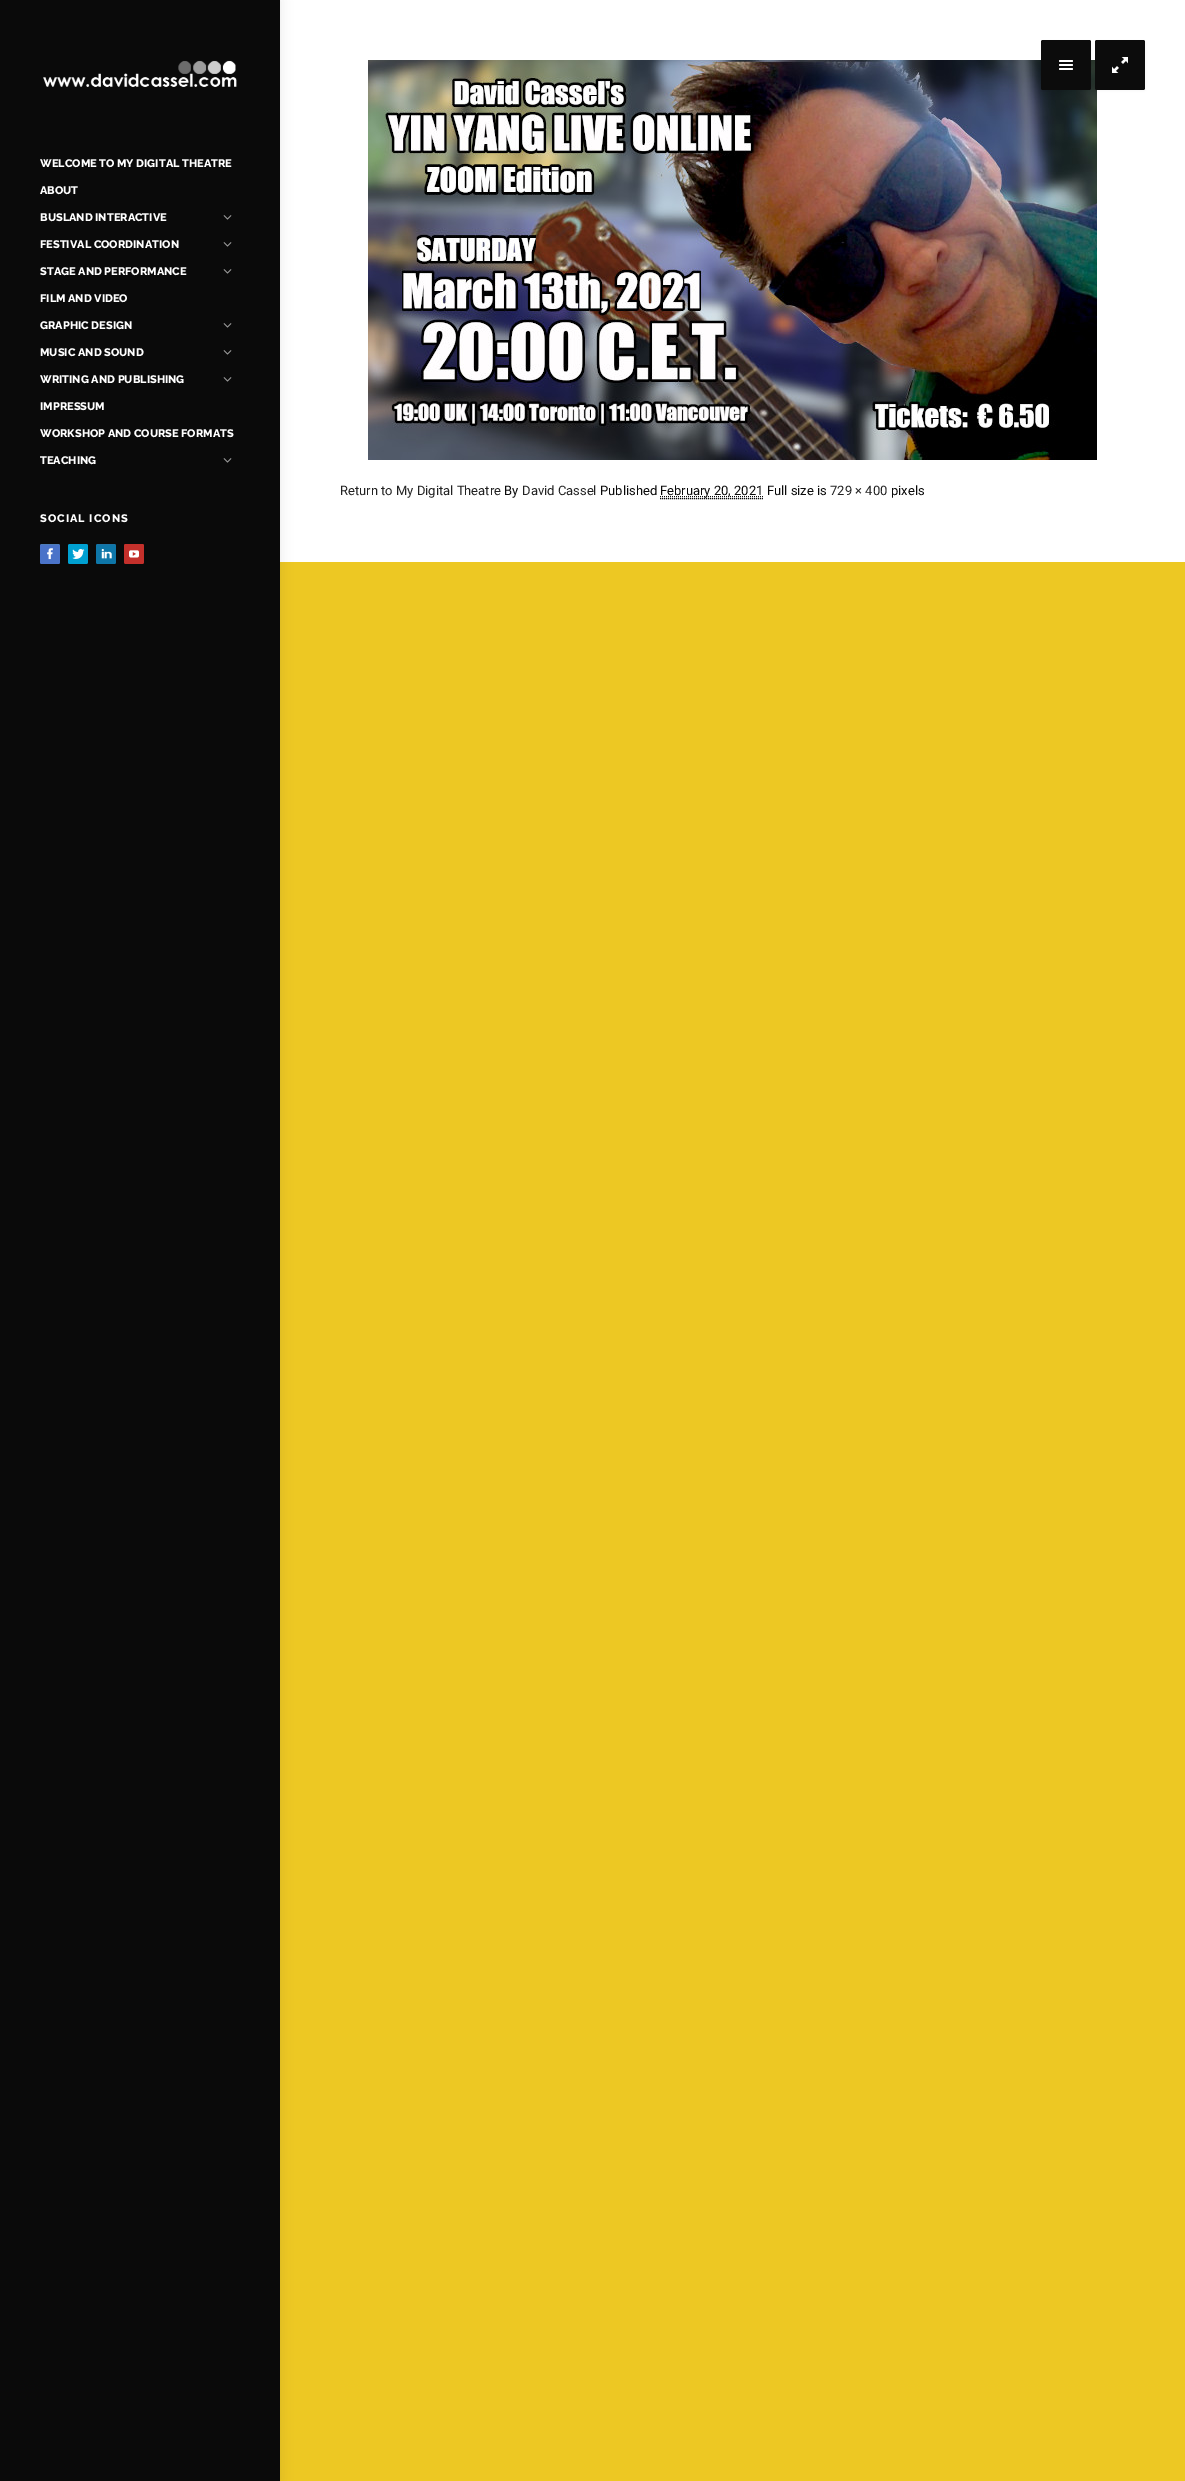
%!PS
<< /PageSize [1185 2481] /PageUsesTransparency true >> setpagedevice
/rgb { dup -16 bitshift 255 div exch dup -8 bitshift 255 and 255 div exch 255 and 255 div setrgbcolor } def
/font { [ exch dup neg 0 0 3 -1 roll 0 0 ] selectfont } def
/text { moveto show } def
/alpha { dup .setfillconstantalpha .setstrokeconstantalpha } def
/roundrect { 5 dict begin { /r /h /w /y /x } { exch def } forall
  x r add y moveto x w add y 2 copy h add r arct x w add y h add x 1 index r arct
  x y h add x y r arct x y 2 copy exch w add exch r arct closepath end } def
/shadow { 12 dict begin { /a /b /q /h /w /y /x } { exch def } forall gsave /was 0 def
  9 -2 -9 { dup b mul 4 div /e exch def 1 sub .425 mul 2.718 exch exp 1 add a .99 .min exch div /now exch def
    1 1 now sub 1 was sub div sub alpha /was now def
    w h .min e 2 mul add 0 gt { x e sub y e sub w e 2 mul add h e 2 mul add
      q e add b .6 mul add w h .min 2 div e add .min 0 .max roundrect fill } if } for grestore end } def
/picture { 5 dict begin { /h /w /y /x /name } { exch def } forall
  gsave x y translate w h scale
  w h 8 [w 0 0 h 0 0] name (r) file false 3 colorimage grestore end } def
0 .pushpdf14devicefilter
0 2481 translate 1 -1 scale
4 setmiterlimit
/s1 { /Raleway-ExtraBold 11 font 16#FFFFFF rgb } def
/s2 { /Roboto-Regular 13 font 16#222222 rgb } def
/s3 { /Roboto-Regular 13 font 16#0A0A0A rgb } def
16#EDC823 rgb
0 0 1185 2481 rectfill
16#FFFFFF rgb
280 0 905 562 rectfill
(pic9.raw) 368 60 729 400 picture
16#000000 rgb
1042 41 50 50 2 1.5 0.04 shadow
16#0C0C0C rgb
1041 40 50 50 2 roundrect fill
(pic1.raw) 1059 60 14 10 picture
16#000000 rgb
1096 41 50 50 2 1.5 0.04 shadow
16#0C0C0C rgb
1095 40 50 50 2 roundrect fill
(pic2.raw) 1112 57 16 16 picture
16#000000 rgb
0 0 280 2481 0 6 0.09 shadow
16#0A0A0A rgb
0 0 280 2481 rectfill
(pic3.raw) 43 60 194 27 picture
s1
(WELCOME TO MY DIGITAL THEATRE) 40 167 text
(ABOUT) 40 194 text
(BUSLAND INTERACTIVE) 40 221 text
(pic4.raw) 223 215 9 5 picture
(FESTIVAL COORDINATION) 40 248 text
(pic4.raw) 223 242 9 5 picture
(STAGE AND PERFORMANCE) 40 275 text
(pic4.raw) 223 269 9 5 picture
(FILM AND VIDEO) 40 302 text
(GRAPHIC DESIGN) 40 329 text
(pic4.raw) 223 323 9 5 picture
(MUSIC AND SOUND) 40 356 text
(pic4.raw) 223 350 9 5 picture
(WRITING AND PUBLISHING) 40 383 text
(pic4.raw) 223 377 9 5 picture
(IMPRESSUM) 40 410 text
(WORKSHOP AND COURSE FORMATS) 40 437 text
(TEACHING) 40 464 text
(pic4.raw) 223 458 9 5 picture
40 522 moveto 1 0 (SOCIAL ICONS) ashow
(pic5.raw) 40 544 20 20 picture
(pic6.raw) 68 544 20 20 picture
(pic7.raw) 96 544 20 20 picture
(pic8.raw) 124 544 20 20 picture
s2
(Return to My Digital Theatre) 340 495 text
s3
(By) 504 495 text
s2
(David Cassel) 522 495 text
s3
(Published) 600 495 text
[1 1] 0 setdash
660 496.5 moveto 763.5 496.5 lineto stroke
(February 20, 2021 Full size is) 660 495 text
660 498.5 moveto 763 498.5 lineto stroke
s2
(729 × 400) 830 495 text
s3
(pixels) 891 495 text
.poppdf14devicefilter showpage
